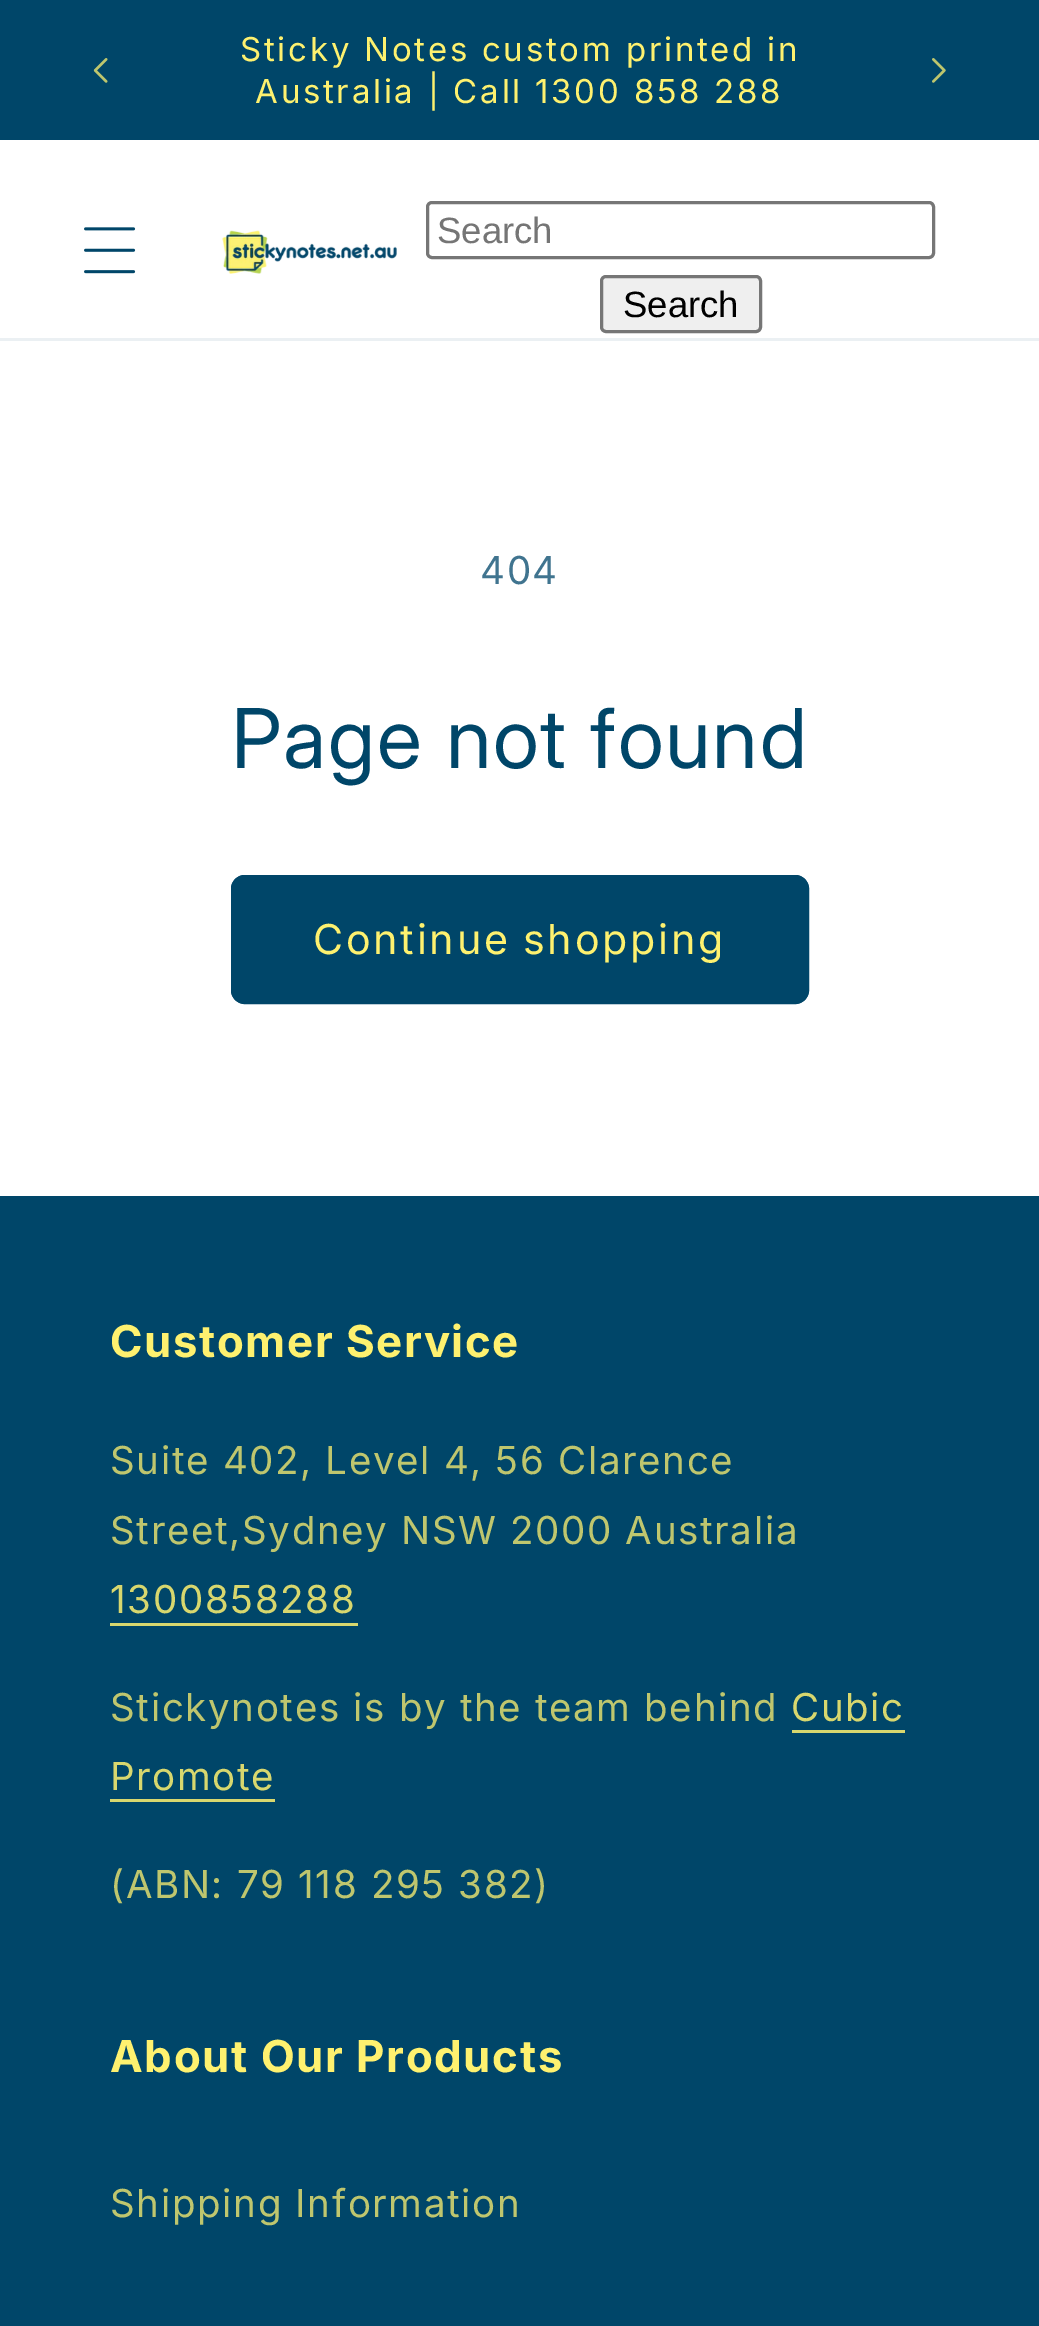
%!PS
<< /PageSize [1039 2326] >> setpagedevice
/rgb { dup -16 bitshift 255 div exch dup -8 bitshift 255 and 255 div exch 255 and 255 div setrgbcolor } def
/font { [ exch dup neg 0 0 3 -1 roll 0 0 ] selectfont } def
/text { moveto show } def
/roundrect { 5 dict begin { /r /h /w /y /x } { exch def } forall
  x r add y moveto x w add y 2 copy h add r arct x w add y h add x 1 index r arct
  x y h add x y r arct x y 2 copy exch w add exch r arct closepath end } def
/picture { 5 dict begin { /h /w /y /x /name } { exch def } forall
  gsave x y translate w h scale
  w h 8 [w 0 0 h 0 0] name (r) file false 3 colorimage grestore end } def
0 2326 translate 1 -1 scale
4 setmiterlimit
/s1 { /LiberationSans-Regular 36.5 font 16#757575 rgb } def
/s2 { /LiberationSans-Regular 36.5 font 16#000000 rgb } def
16#FFFFFF rgb
0 0 1039 2326 rectfill
16#004669 rgb
0 0 1039 140 rectfill
(pic1.raw) 93 58 15 25 picture
/Inter-Regular 33 font
16#FEF16F rgb
240 61 moveto 2.75 0 (Sticky Notes custom printed in) ashow
255 103 moveto 2.75 0 (Australia | Call 1300 858 288) ashow
(pic2.raw) 932 58 14 25 picture
16#EBF0F3 rgb
0 338 1039 3 rectfill
(pic3.raw) 84 227 52 47 picture
(pic4.raw) 222 230 175 44 picture
16#767676 rgb
3 setlinewidth
427.5 202.5 506 55 4.5 roundrect stroke
s1
(Search) 437 243 text
16#EFEFEF rgb
601.5 276.5 159 55 4.5 roundrect gsave fill grestore
16#767676 rgb
stroke
s2
(Search) 623 317 text
/Inter-Regular 38.5 font
16#40748F rgb
480 584 moveto 1.65 0 (404) ashow
/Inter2-Regular 82.5 font
16#004669 rgb
231 768 moveto 1.65 0 (Page not found) ashow
231 875 578 129 14 roundrect fill
232.5 876.5 575 126 12.5 roundrect stroke
/Inter-Regular 41.25 font
16#FEF16F rgb
313 954 moveto -2 0 32 2.75 0 (Continue shopping) awidthshow
16#004669 rgb
0 1196 1039 1130 rectfill
/Inter-Bold 44 font
16#FEF16F rgb
110 1357 moveto 1.65 0 (Customer Service) ashow
/Inter-Regular 38.5 font
16#BFC66E rgb
110 1474 moveto 1.65 0 (Suite 402, Level 4, 56 Clarence) ashow
110 1544 moveto 1.65 0 (Street,Sydney NSW 2000 Australia) ashow
16#D8D76E rgb
110 1613 moveto 1.65 0 (1300858288) ashow
110 1623 248 3 rectfill
16#BFC66E rgb
110 1721 moveto 1.65 0 (Stickynotes is by the team behind) ashow
16#D8D76E rgb
791 1721 moveto 1.65 0 (Cubic) ashow
792 1730 113 3 rectfill
110 1790 moveto 1.65 0 (Promote) ashow
110 1799 165 3 rectfill
16#BFC66E rgb
110 1898 moveto 1.65 0 (\(ABN: 79 118 295 382\)) ashow
/Inter-Bold 44 font
16#FEF16F rgb
110 2072 moveto 1.65 0 (About Our Products) ashow
/Inter-Regular 38.5 font
16#BFC66E rgb
110 2217 moveto 1.65 0 (Shipping Information) ashow
showpage
